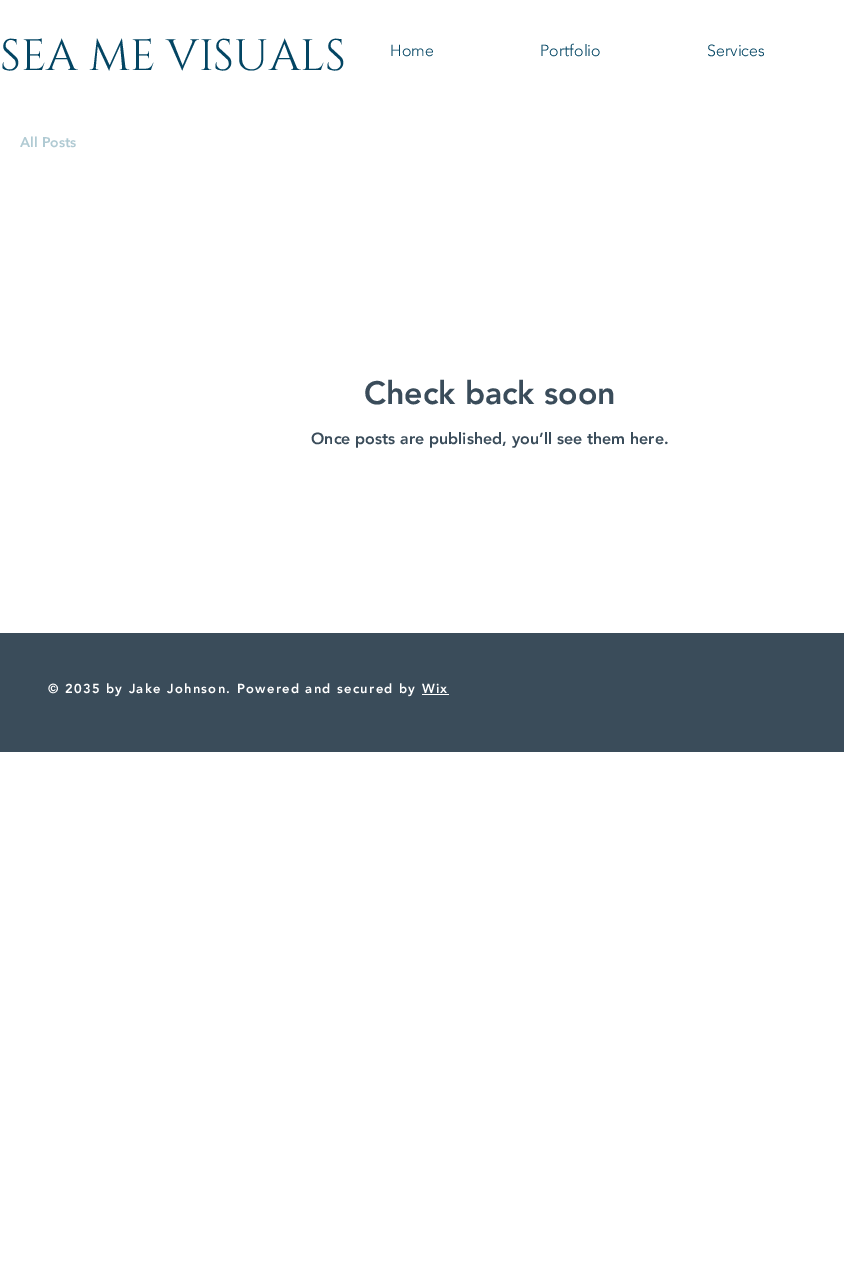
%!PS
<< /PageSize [844 1277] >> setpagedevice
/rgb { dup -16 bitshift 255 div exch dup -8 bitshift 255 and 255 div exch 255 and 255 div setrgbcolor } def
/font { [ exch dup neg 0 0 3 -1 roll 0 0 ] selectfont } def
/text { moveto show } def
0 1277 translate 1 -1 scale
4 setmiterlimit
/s1 { /Cinzel-Regular 44 font 16#034563 rgb } def
/s2 { /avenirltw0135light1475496-Light 16 font 16#034563 rgb } def
/s3 { /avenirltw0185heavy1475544-Black 14 font 16#B0CAD3 rgb } def
/s4 { /avenirltw0185heavy1475544-Black 32 font 16#3A4C5A rgb } def
/s5 { /avenirltw0185heavy1475544-Black 16 font 16#3A4C5A rgb } def
16#FFFFFF rgb
0 0 844 1277 rectfill
s1
(SEA ME VISUALS) 0 70 text
s2
(Home) 390 56 text
(Portfolio) 540 56 text
(Services) 707 56 text
s3
(All Posts) 20 147 text
s4
(Check back soon) 364 404 text
s5
(Once posts are published, you’ll see them here.) 311 444 text
0 633 844 119 rectfill
/avenirltw0185heavy1475544-Black 13 font
16#FFFFFF rgb
48 693 moveto 1.3 0 (© 2035 by Jake Johnson. Powered and secured by Wix) ashow
422 694 27 1 rectfill
showpage
